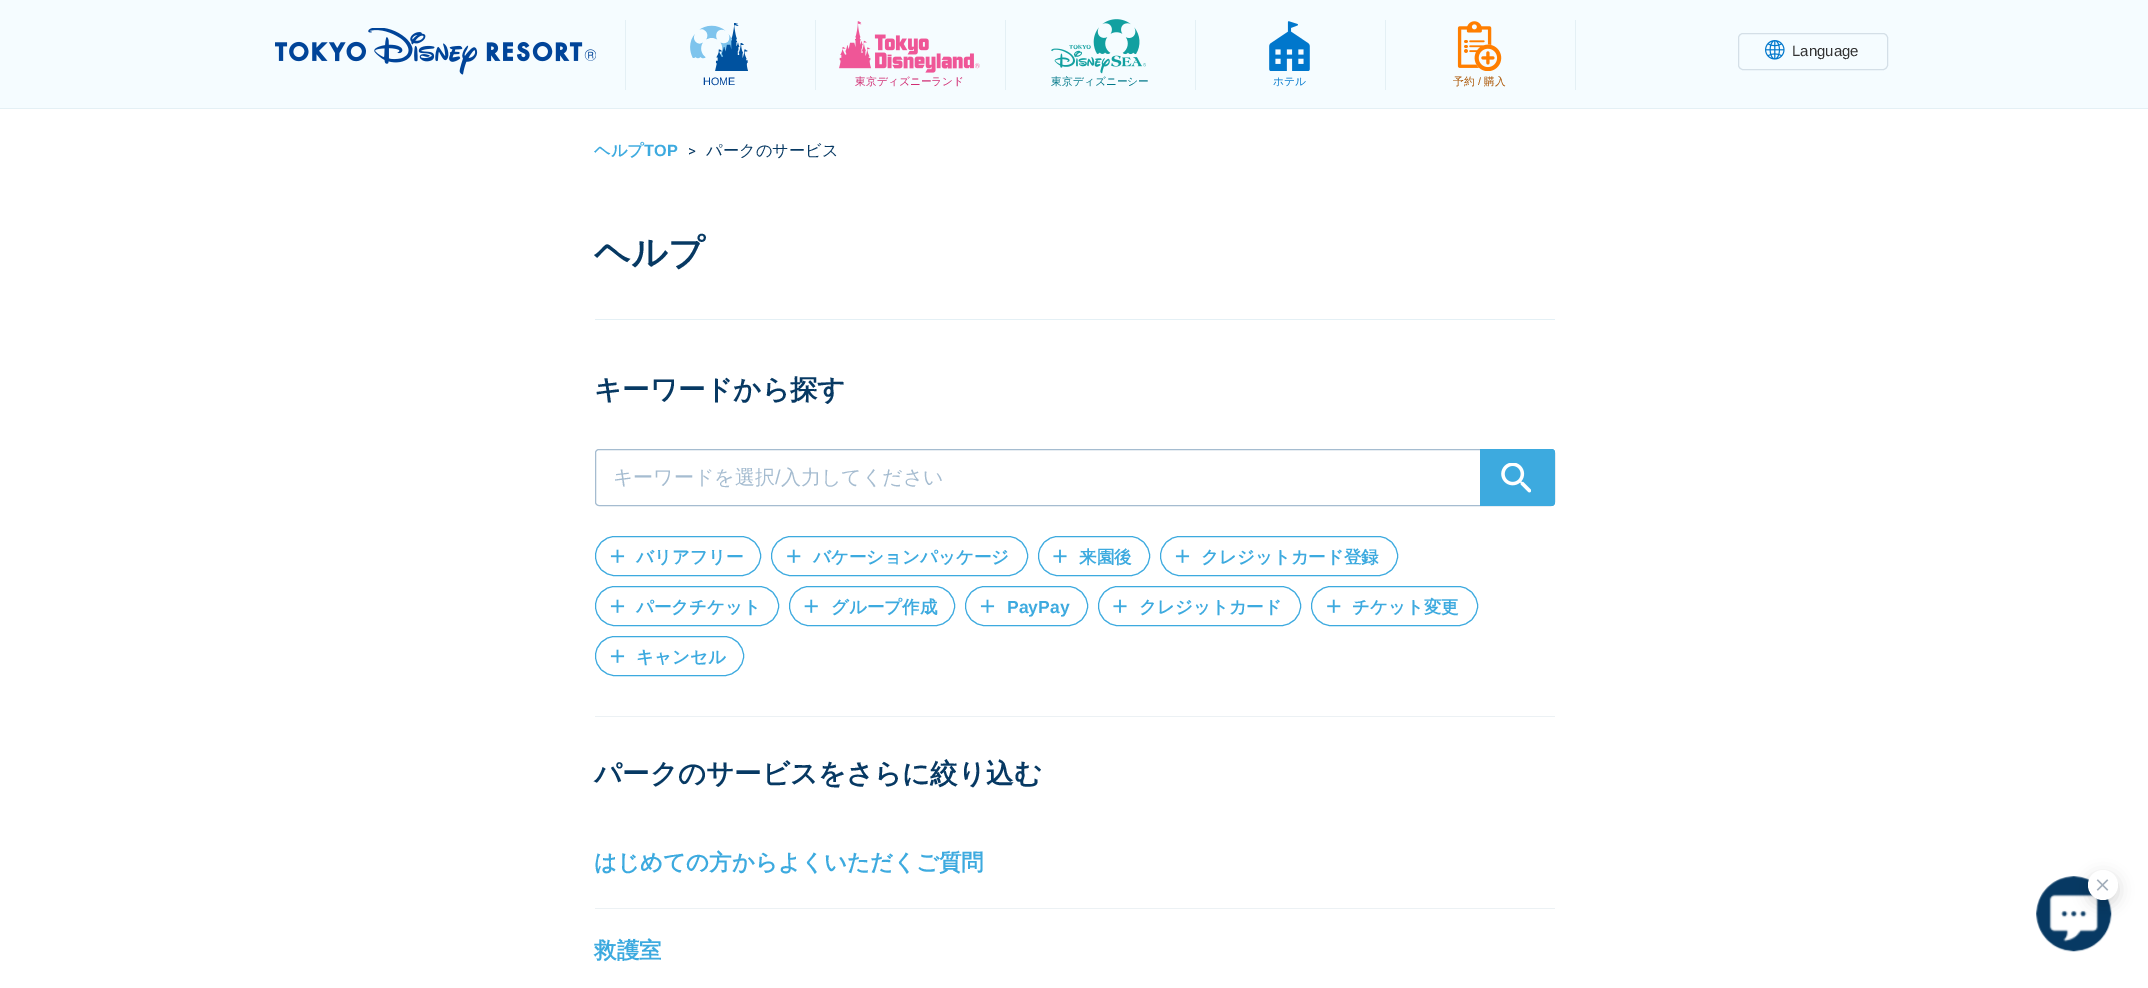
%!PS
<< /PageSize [2148 988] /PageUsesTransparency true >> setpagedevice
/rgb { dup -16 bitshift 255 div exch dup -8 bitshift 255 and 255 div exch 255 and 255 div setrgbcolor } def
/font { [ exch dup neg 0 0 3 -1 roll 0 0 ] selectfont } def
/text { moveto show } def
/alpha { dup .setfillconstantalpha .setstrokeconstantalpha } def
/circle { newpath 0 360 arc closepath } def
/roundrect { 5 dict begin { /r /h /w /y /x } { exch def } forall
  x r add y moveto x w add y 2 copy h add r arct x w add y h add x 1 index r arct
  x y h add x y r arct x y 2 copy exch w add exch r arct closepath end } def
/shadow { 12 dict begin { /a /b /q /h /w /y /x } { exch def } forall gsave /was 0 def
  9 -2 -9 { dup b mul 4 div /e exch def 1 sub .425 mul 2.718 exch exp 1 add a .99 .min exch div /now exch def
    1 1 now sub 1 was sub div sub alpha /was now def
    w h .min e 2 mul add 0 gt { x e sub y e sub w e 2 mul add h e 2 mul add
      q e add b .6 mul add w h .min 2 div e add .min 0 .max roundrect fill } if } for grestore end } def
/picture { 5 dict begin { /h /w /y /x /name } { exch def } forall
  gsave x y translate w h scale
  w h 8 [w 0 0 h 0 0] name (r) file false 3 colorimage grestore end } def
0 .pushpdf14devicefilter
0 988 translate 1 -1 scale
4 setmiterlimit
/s1 { /LiberationSans-Regular 15 font 16#333333 rgb } def
/s2 { /LiberationSans-Regular 10.75 font 16#004499 rgb } def
/s3 { /WenQuanYiZenHei-Medium 10.75 font 16#D02C72 rgb } def
/s4 { /WenQuanYiZenHei-Medium 10.75 font 16#007788 rgb } def
/s5 { /WenQuanYiZenHei-Medium 10.75 font 16#0077CC rgb } def
/s6 { /WenQuanYiZenHei-Medium 10.75 font 16#AA5401 rgb } def
/s7 { /LiberationSans-Regular 10.75 font 16#AA5401 rgb } def
/s8 { /WenQuanYiZenHei-Bold 16.25 font 16#3DAADF rgb } def
/s9 { /LiberationSans-Bold 16.25 font 16#3DAADF rgb } def
/s10 { /Roboto-Regular 15 font 16#073963 rgb } def
/s11 { /WenQuanYiZenHei-Medium 16.25 font 16#073963 rgb } def
/s12 { /WenQuanYiZenHei-Bold 27.5 font 16#073963 rgb } def
/s13 { /WenQuanYiZenHei-Medium 20 font 16#A5BCD0 rgb } def
/s14 { /LiberationSans-Regular 20 font 16#A5BCD0 rgb } def
/s15 { /WenQuanYiZenHei-Bold 17.5 font 16#3DAADF rgb } def
/s16 { /LiberationSans-Bold 17.5 font 16#3DAADF rgb } def
/s17 { /WenQuanYiZenHei-Bold 36 font 16#073963 rgb } def
/s18 { /WenQuanYiZenHei-Bold 22.5 font 16#3DAADF rgb } def
16#FFFFFF rgb
0 0 2148 988 rectfill
16#F5FCFF rgb
0 0 2148 108 rectfill
16#E4F0F5 rgb
0 108 2148 1 rectfill
(pic1.raw) 275 28 321 47 picture
16#D4DFE7 rgb
1738.5 33.5 149 36 4.5 roundrect stroke
(pic2.raw) 1765 40 20 20 picture
s1
(Language) 1792 56 text
16#E4F0F5 rgb
625 20 1 70 rectfill
(pic3.raw) 690 23 58 48 picture
s2
(HOME) 703 85 text
16#E4F0F5 rgb
815 20 1 70 rectfill
(pic4.raw) 839 21 141 52 picture
s3
(東京ディズニーランド) 855 85 text
16#E4F0F5 rgb
1005 20 1 70 rectfill
(pic5.raw) 1051 19 95 55 picture
s4
(東京ディズニーシー) 1051 85 text
16#E4F0F5 rgb
1195 20 1 70 rectfill
(pic6.raw) 1269 21 41 50 picture
s5
(ホテル) 1273 85 text
16#E4F0F5 rgb
1385 20 1 70 rectfill
(pic7.raw) 1457 21 45 50 picture
s6
(予約) 1453 85 text
s7
(/) 1478 85 text
s6
(購入) 1484 85 text
16#E4F0F5 rgb
1575 20 1 70 rectfill
s8
(ヘルプ) 594 156 text
s9
(TOP) 644 156 text
s10
(>) 688 156 text
s11
(パークのサービス) 706 156 text
s12
(キーワードから探す) 594 399 text
16#ECF1F4 rgb
595 716 960 1 rectfill
16#A5BCD0 rgb
595.5 449.5 959 56 3.5 roundrect stroke
s13
(キーワードを選択) 613 484 text
s14
(/) 775 484 text
s13
(入力してください) 781 484 text
16#3DAADF rgb
1480 449 moveto 1551 449 lineto 1553 449 1555 451 1555 453 curveto 1555 502 lineto 1555 504 1553 506 1551 506 curveto 1480 506 lineto closepath fill
1480 449 moveto 1551 449 lineto 1553 449 1555 450 1555 452 curveto 1555 502 lineto 1555 505 1553 506 1551 506 curveto 1480 506 lineto closepath 1480 450 moveto 1551 450 lineto 1553 450 1554 451 1554 452 curveto 1554 502 lineto 1554 504 1553 505 1551 505 curveto 1480 505 lineto closepath eofill
(pic8.raw) 1501 463 30 30 picture
595.5 536.5 165 39 19.5 roundrect stroke
(pic9.raw) 610 549 15 14 picture
s15
(バリアフリー) 636 563 text
771.5 536.5 256 39 19.5 roundrect stroke
(pic10.raw) 787 549 14 14 picture
(バケーションパッケージ) 813 563 text
1038.5 536.5 111 39 19.5 roundrect stroke
(pic11.raw) 1053 549 14 14 picture
(来園後) 1079 563 text
1160.5 536.5 237 39 19.5 roundrect stroke
(pic9.raw) 1175 549 15 14 picture
(クレジットカード登録) 1201 563 text
595.5 586.5 183 39 19.5 roundrect stroke
(pic9.raw) 610 599 15 14 picture
(パークチケット) 636 613 text
789.5 586.5 165 39 19.5 roundrect stroke
(pic12.raw) 804 599 14 14 picture
(グループ作成) 831 613 text
965.5 586.5 122 39 19.5 roundrect stroke
(pic9.raw) 980 599 15 14 picture
s16
(PayPay) 1007 613 text
1098.5 586.5 202 39 19.5 roundrect stroke
(pic11.raw) 1113 599 14 14 picture
s15
(クレジットカード) 1139 613 text
1311.5 586.5 166 39 19.5 roundrect stroke
(pic10.raw) 1327 599 14 14 picture
(チケット変更) 1352 613 text
595.5 636.5 148 39 19.5 roundrect stroke
(pic9.raw) 610 649 15 14 picture
(キャンセル) 636 663 text
16#E4F0F5 rgb
595 319 960 1 rectfill
s17
(ヘルプ) 594 265 text
s12
(パークのサービスをさらに絞り込む) 594 783 text
16#ECF1F4 rgb
595 908 960 1 rectfill
s18
(はじめての方からよくいただくご質問) 594 870 text
(救護室) 594 958 text
(pic14.raw) 2036 876 76 76 picture
16#000000 rgb
2088 875 30 30 15 7.5 0.15 shadow
16#FFFFFF rgb
2103 885 15 circle fill
(pic13.raw) 2096 879 13 12 picture
.poppdf14devicefilter showpage
